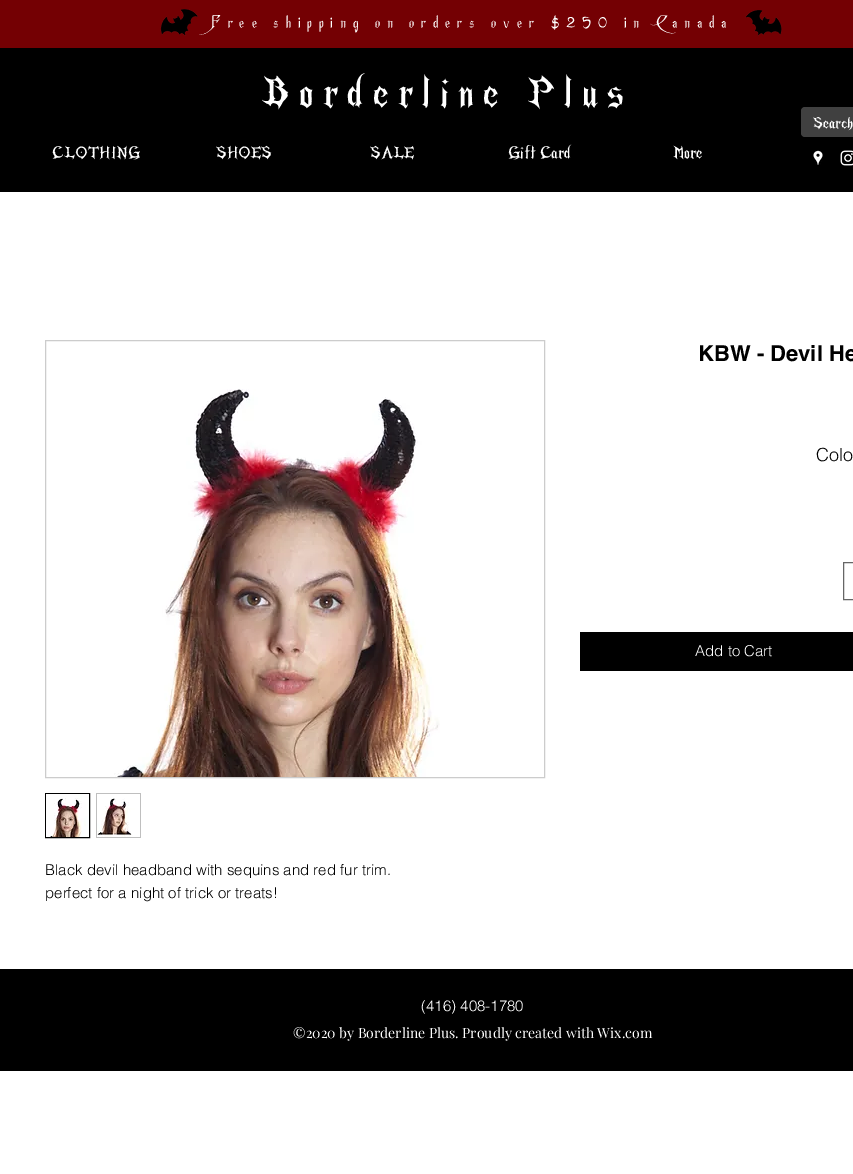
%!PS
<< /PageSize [853 1174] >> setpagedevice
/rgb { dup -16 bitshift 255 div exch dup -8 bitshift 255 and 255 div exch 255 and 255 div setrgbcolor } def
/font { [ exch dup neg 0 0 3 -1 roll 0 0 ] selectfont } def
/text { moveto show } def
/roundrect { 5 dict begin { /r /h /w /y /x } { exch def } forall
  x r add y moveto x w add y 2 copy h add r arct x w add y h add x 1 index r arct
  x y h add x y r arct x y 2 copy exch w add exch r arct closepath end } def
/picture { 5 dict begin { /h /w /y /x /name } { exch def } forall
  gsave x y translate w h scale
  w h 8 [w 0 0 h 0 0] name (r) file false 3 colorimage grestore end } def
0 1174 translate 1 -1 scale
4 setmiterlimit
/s1 { /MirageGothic-Regular 14 font 16#FFFFFF rgb } def
/s2 { /MirageGothic-Regular 15 font 16#FFFFFF rgb } def
/s3 { /helvetica-Bold 22 font 16#000000 rgb } def
/s4 { /helvetica-Light 18 font 16#000000 rgb } def
/s5 { /helvetica-Light 15 font 16#FFFFFF rgb } def
/s6 { /helvetica-Light 15 font 16#000000 rgb } def
/s7 { /PlayfairDisplay-Regular 14 font 16#FFFFFF rgb } def
16#FFFFFF rgb
0 0 853 1174 rectfill
16#740003 rgb
0 0 853 48 rectfill
(pic1.raw) 160 9 38 27 picture
/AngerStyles-Regular 15 font
16#FFFFFF rgb
210 28 moveto 6.75 0 (Free shipping on orders over $250 in Canada) ashow
(pic2.raw) 745 10 37 26 picture
16#000000 rgb
0 48 853 144 rectfill
/MirageGothic-Regular 37 font
16#FFFFFF rgb
261 106 moveto 9.25 0 (Borderline Plus) ashow
16#404040 rgb
801 107 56 30 4 roundrect fill
gsave
813 117 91 15 rectclip
s1
(Search) 813 128 text
grestore
s2
(CLOTHING) 52 158 text
(SHOES) 216 158 text
(SALE) 370 158 text
(Gift Card) 508 158 text
(More) 673 158 text
(pic3.raw) 813 150 10 15 picture
(pic4.raw) 840 150 13 16 picture
s3
(KBW - Devil He) 698 361 text
s4
(Colo) 816 461 text
16#666666 rgb
843.5 562.5 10 37 rectstroke
16#000000 rgb
580 632 273 39 rectfill
s5
(Add to Cart) 695 656 text
16#CCCCCC rgb
45.5 340.5 499 437 rectstroke
(pic5.raw) 114 389 326 388 picture
16#000000 rgb
45.5 793.5 44 44 rectstroke
(pic6.raw) 46 794 43 43 picture
16#BFBFBF rgb
96 793 45 45 rectfill
(pic7.raw) 97 794 43 43 picture
s6
(Black devil headband with sequins and red fur trim.) 45 875 text
(perfect for a night of trick or treats!) 45 898 text
0 969 853 102 rectfill
s5
(\(416\) 408-1780) 421 1011 text
s7
(©2020 by Borderline Plus. Proudly created with Wix.com) 293 1038 text
showpage
